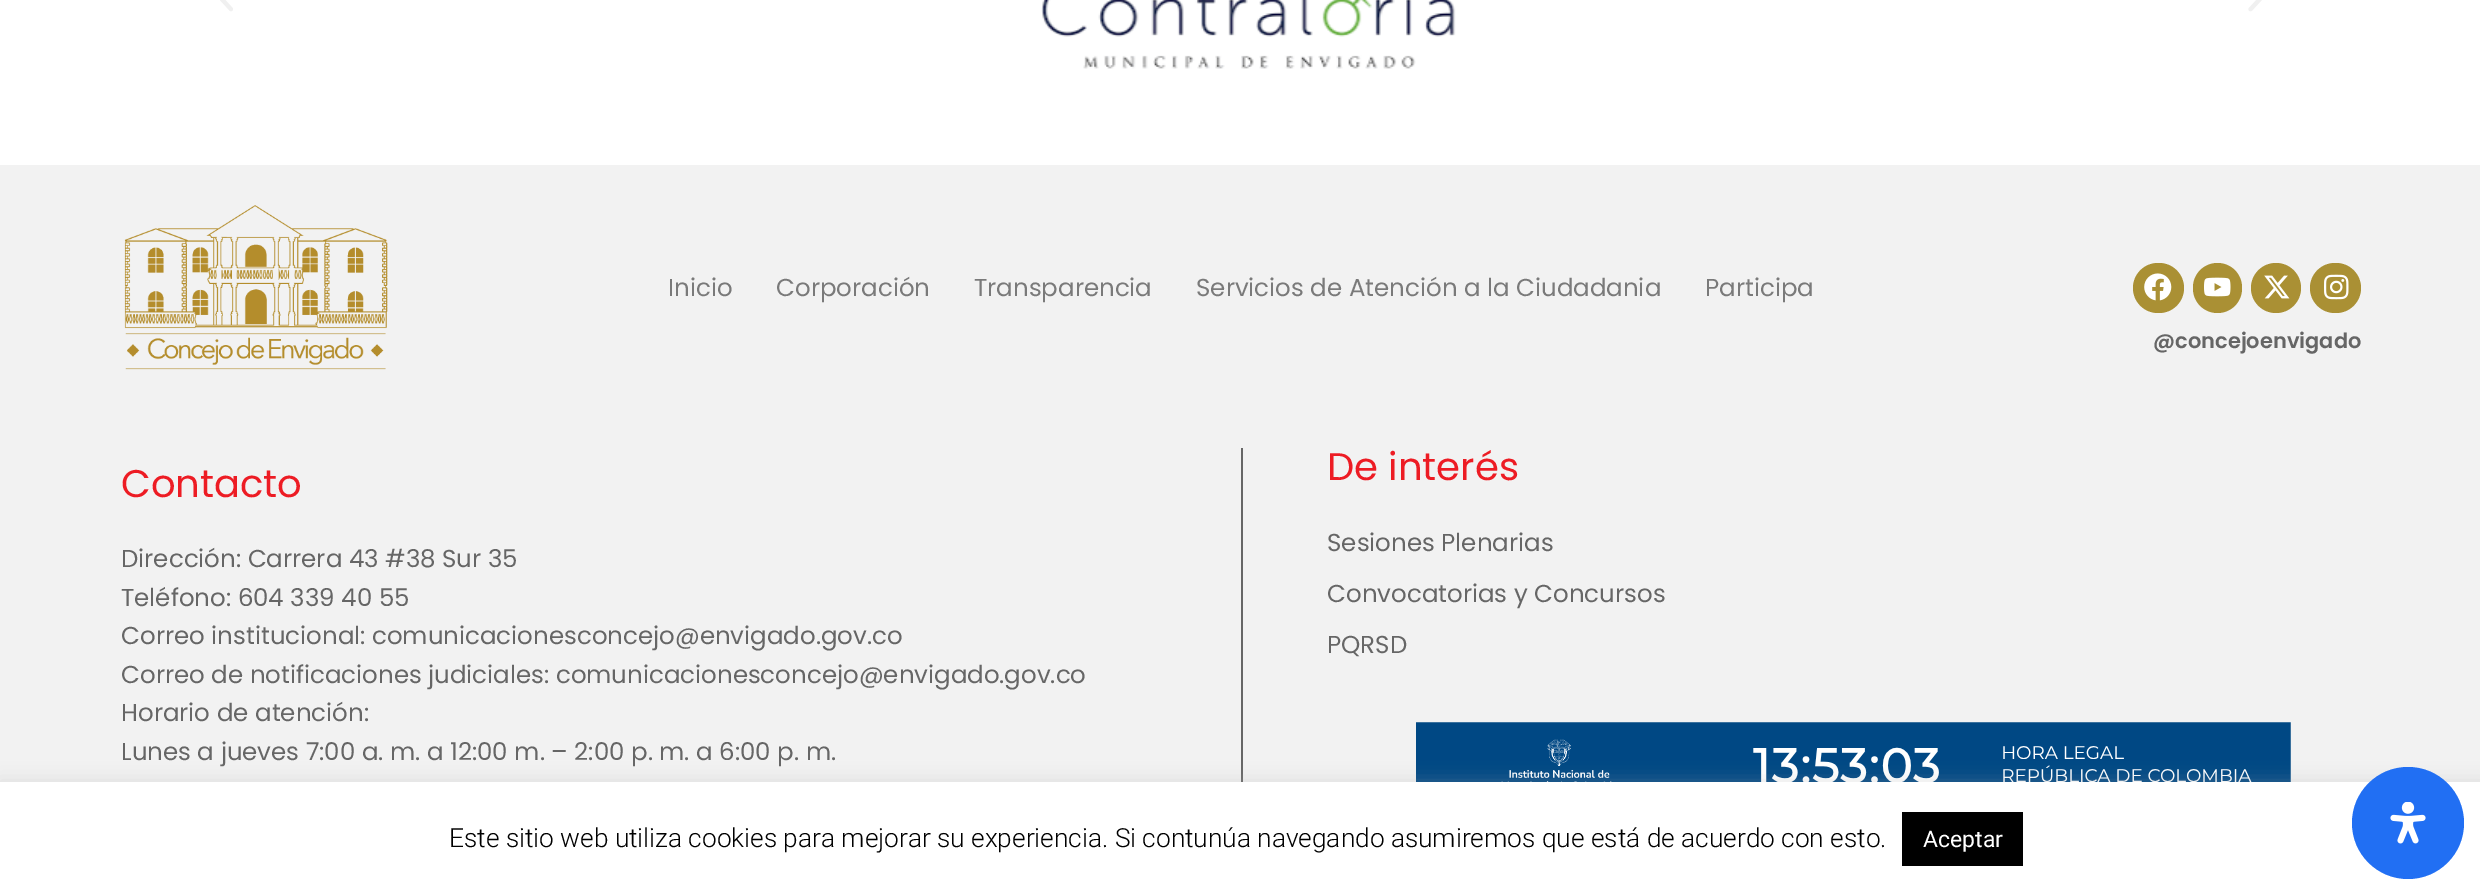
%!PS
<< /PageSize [2480 895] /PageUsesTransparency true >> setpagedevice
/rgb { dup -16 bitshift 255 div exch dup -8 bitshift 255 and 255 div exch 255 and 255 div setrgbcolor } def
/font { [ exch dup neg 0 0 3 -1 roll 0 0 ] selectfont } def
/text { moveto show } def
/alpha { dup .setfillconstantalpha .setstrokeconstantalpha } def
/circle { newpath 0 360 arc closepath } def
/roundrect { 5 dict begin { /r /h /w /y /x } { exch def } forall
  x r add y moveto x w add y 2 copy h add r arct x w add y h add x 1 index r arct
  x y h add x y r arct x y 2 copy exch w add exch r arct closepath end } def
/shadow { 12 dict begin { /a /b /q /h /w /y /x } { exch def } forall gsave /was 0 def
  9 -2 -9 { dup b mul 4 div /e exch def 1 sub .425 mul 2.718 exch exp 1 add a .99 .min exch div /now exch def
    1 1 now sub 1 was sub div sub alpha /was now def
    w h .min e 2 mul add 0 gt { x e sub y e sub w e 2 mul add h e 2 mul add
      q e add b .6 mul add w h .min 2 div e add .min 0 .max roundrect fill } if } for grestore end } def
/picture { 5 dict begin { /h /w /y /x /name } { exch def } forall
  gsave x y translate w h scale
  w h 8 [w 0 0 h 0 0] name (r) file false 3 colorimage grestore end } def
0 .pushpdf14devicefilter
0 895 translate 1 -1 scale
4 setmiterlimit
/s1 { /Poppins-Regular 24.5 font 16#7A7A7A rgb } def
/s2 { /Poppins-SemiBold 21 font 16#666666 rgb } def
/s3 { /Poppins-Regular 38.5 font 16#ED1C24 rgb } def
/s4 { /Poppins-Regular 24.5 font 16#666666 rgb } def
/s5 { /Roboto-Light 26.25 font 16#000000 rgb } def
/s6 { /Roboto-Regular 23 font 16#FFFFFF rgb } def
16#FFFFFF rgb
0 0 2480 895 rectfill
(pic1.raw) 220 0 13 12 picture
(pic2.raw) 1041 0 415 69 picture
(pic3.raw) 2248 0 14 12 picture
16#F2F2F2 rgb
0 165 2480 617 rectfill
(pic4.raw) 124 205 264 165 picture
s1
(Inicio) 668 296 text
(Corporación) 776 296 text
(Transparencia) 974 296 text
(Servicios de Atención a la Ciudadania) 1196 296 text
(Participa) 1705 296 text
16#AA9034 rgb
2133 263 51 50 25 roundrect fill
(pic5.raw) 2144 273 28 28 picture
2193 263 49 50 24.5 roundrect fill
(pic6.raw) 2204 277 27 20 picture
2276 288 25 circle fill
(pic7.raw) 2264 275 26 24 picture
2310 263 51 50 25 roundrect fill
(pic8.raw) 2324 274 25 26 picture
s2
(@concejoenvigado) 2153 348 text
s3
(Contacto) 121 497 text
s4
(Dirección: Carrera 43 #38 Sur 35) 121 567 text
(Teléfono: 604 339 40 55) 121 606 text
(Correo institucional: comunicacionesconcejo@envigado.gov.co) 121 644 text
(Correo de notificaciones judiciales: comunicacionesconcejo@envigado.gov.co) 121 683 text
(Horario de atención:) 121 721 text
(Lunes a jueves 7:00 a. m. a 12:00 m. – 2:00 p. m. a 6:00 p. m.) 121 760 text
1241 448 2 334 rectfill
s3
(De interés) 1327 480 text
s4
(Sesiones Plenarias) 1327 551 text
(Convocatorias y Concursos) 1327 602 text
(PQRSD) 1327 653 text
(pic9.raw) 1416 722 875 60 picture
16#ACABAB rgb
0 781 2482 113 0 9 0.3 shadow
16#FFFFFF rgb
0 782 2480 113 rectfill
s5
(Este sitio web utiliza cookies para mejorar su experiencia. Si contunúa navegando asumiremos que está de acuerdo con esto.) 449 847 text
1902 812 121 54 rectfill
s6
(Aceptar) 1923 847 text
16#216FF3 rgb
2408 823 56 circle fill
(pic10.raw) 2390 802 36 42 picture
.poppdf14devicefilter showpage
